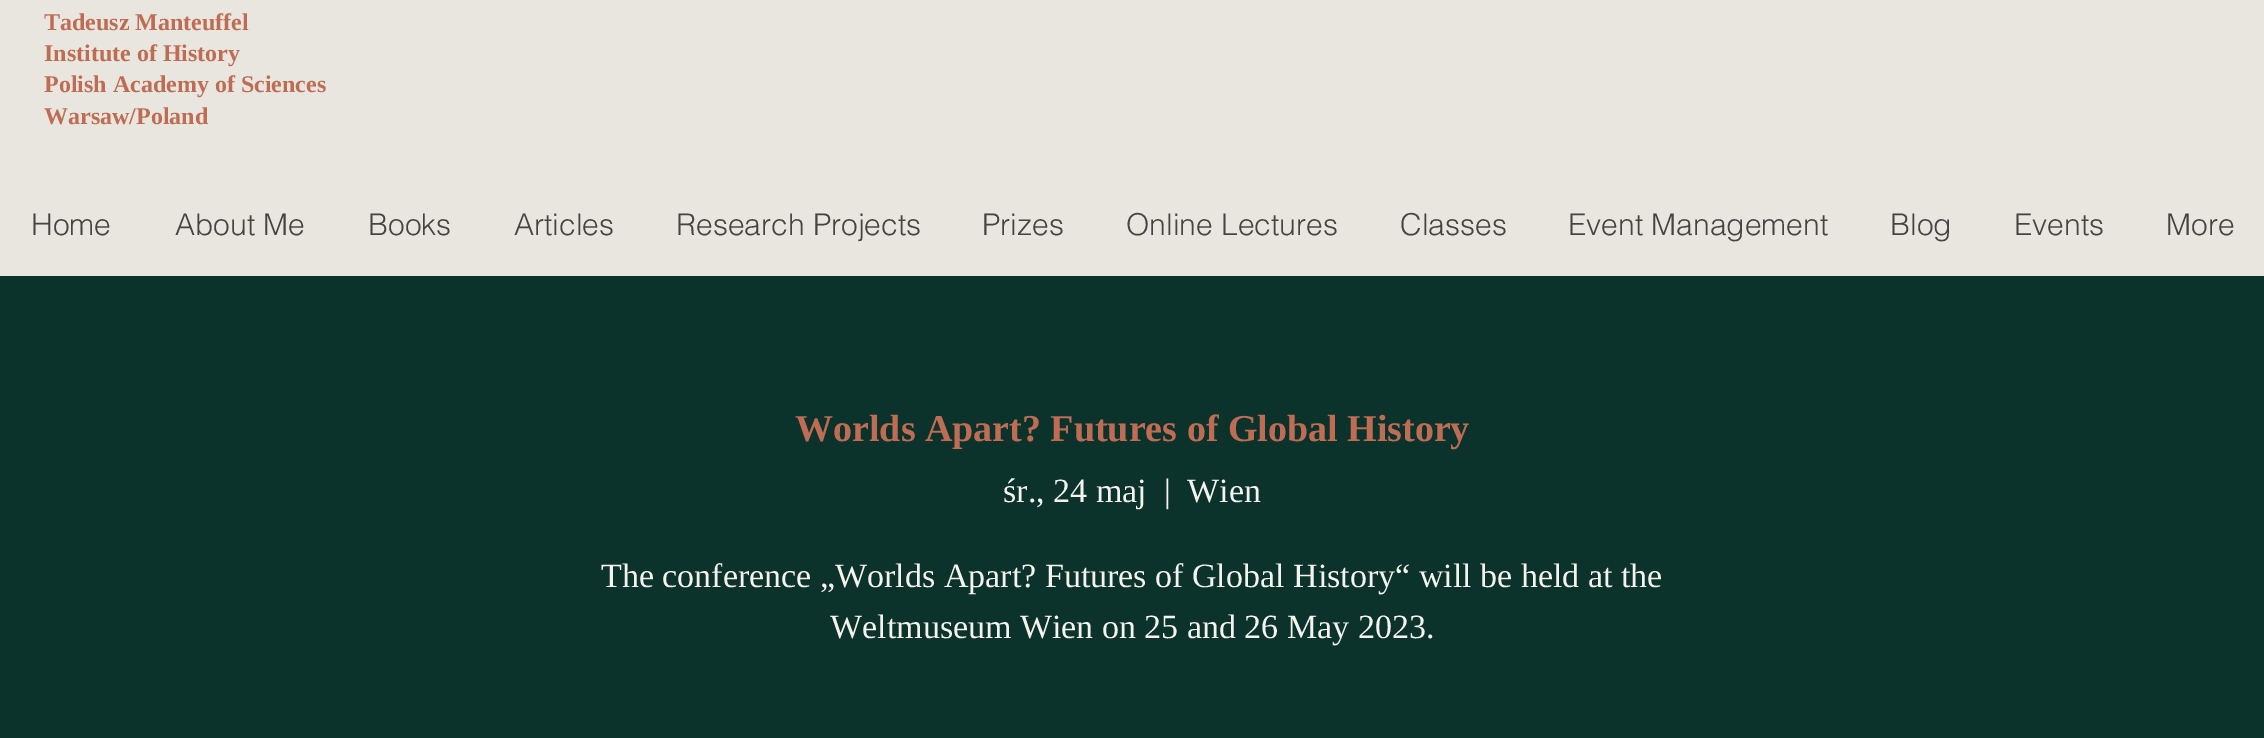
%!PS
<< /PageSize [2264 738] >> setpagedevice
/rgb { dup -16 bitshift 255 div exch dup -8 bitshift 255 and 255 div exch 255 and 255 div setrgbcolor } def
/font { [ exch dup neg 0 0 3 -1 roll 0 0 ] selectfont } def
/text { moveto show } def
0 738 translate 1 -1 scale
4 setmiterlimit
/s1 { /LiberationSerif-Bold 24 font 16#BE6D54 rgb } def
/s2 { /helvetica-Light 30 font 16#444444 rgb } def
/s3 { /LiberationSerif-Bold 38 font 16#BE6D54 rgb } def
/s4 { /LiberationSerif-Regular 34 font 16#F5F3EE rgb } def
16#E9E6DF rgb
0 0 2264 738 rectfill
s1
(Tadeusz Manteuffel) 44 30 text
(Institute of History) 44 61 text
(Polish Academy of Sciences) 44 92 text
(Warsaw/Poland) 44 124 text
s2
(Home) 31 235 text
(About Me) 175 235 text
(Books) 368 235 text
(Articles) 514 235 text
(Research Projects) 676 235 text
(Prizes) 982 235 text
(Online Lectures) 1126 235 text
(Classes) 1400 235 text
(Event Management) 1568 235 text
(Blog) 1890 235 text
(Events) 2014 235 text
(More) 2166 235 text
16#0B322B rgb
0 276 2264 462 rectfill
s3
(Worlds Apart? Futures of Global History) 795 441 text
s4
(śr., 24 maj) 1003 502 text
(|) 1164 502 text
(Wien) 1187 502 text
(The conference „Worlds Apart? Futures of Global History“ will be held at the) 601 587 text
(Weltmuseum Wien on 25 and 26 May 2023.) 830 638 text
showpage
